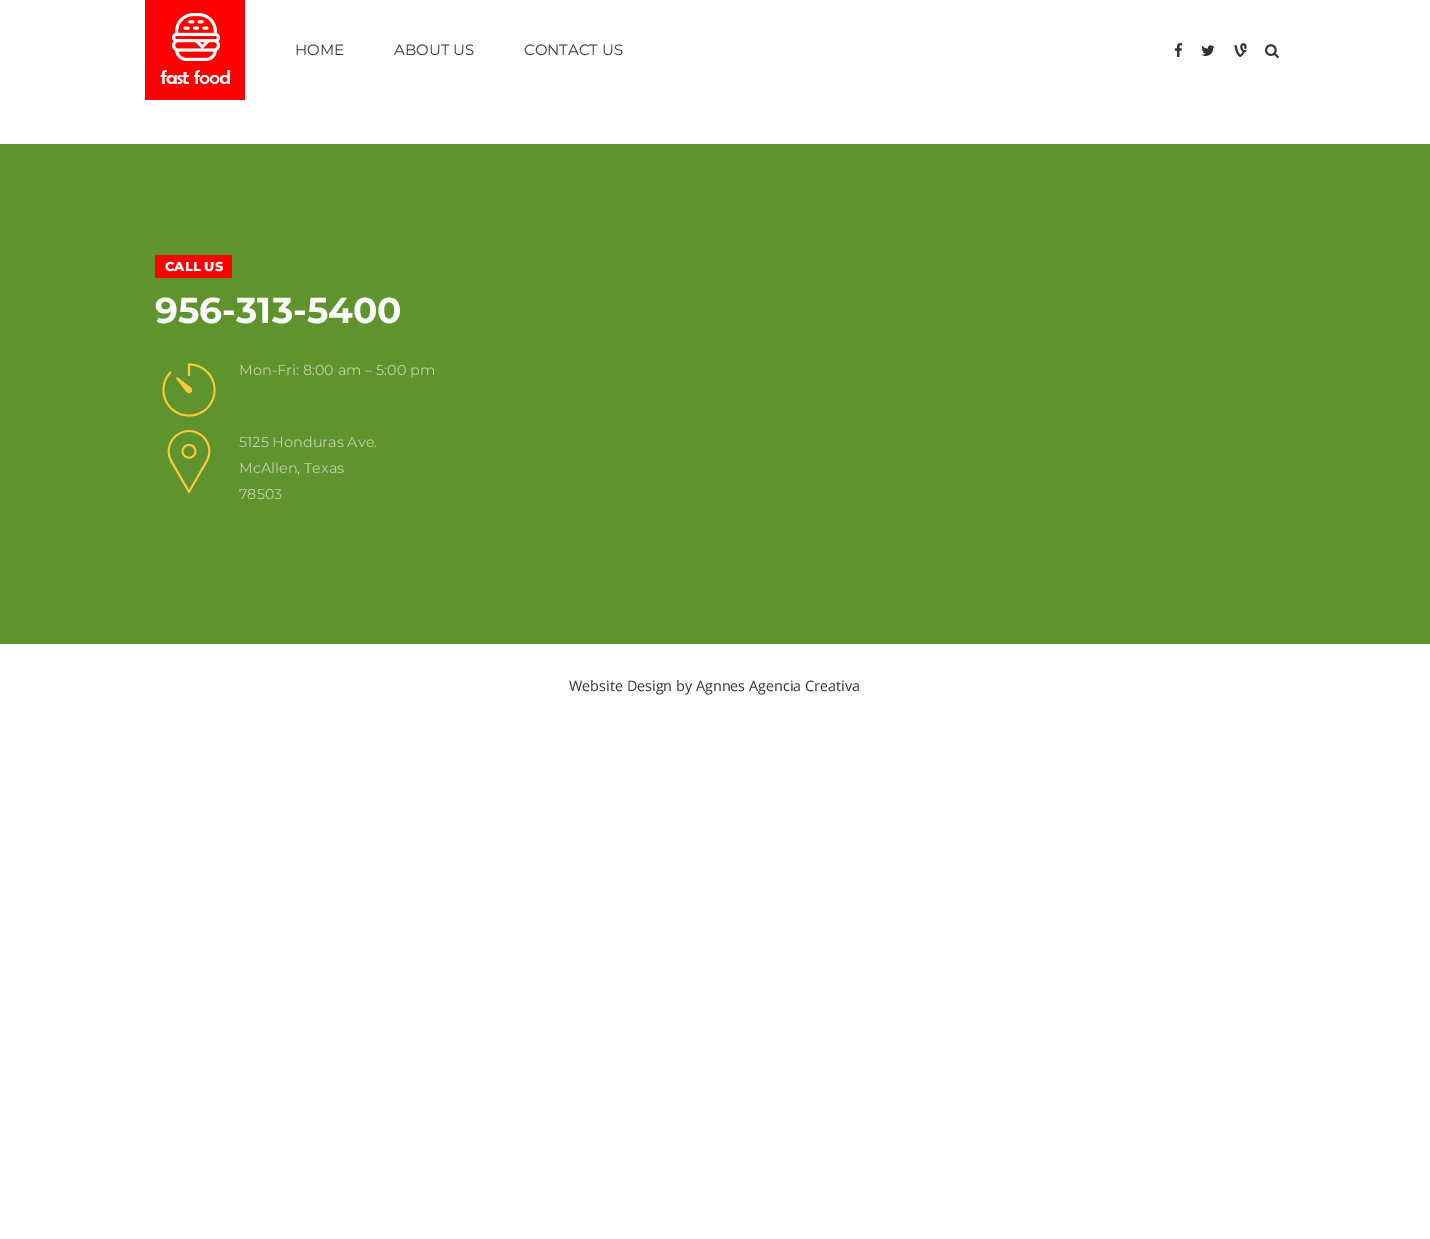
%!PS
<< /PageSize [1430 1239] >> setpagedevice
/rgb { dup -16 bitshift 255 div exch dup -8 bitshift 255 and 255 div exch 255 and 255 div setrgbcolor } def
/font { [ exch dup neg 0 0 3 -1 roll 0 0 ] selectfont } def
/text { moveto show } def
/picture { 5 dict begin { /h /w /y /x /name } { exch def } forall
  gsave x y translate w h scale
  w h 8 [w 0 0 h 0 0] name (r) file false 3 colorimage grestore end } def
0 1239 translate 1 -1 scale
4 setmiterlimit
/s1 { /Montserrat-Regular 15 font 16#333333 rgb } def
/s2 { /Montserrat-ExtraBold 13 font 16#FFFFFF rgb } def
/s3 { /Montserrat-Bold 36 font 16#FFFFFF rgb } def
/s4 { /Montserrat-Regular 14.4 font 16#BFD4AB rgb } def
/s5 { /OpenSans-Regular 14.4 font 16#333333 rgb } def
16#FFFFFF rgb
0 0 1430 1239 rectfill
(pic1.raw) 145 0 100 100 picture
s1
(HOME) 295 55 text
(ABOUT US) 394 55 text
(CONTACT US) 524 55 text
(pic2.raw) 1174 43 9 15 picture
(pic3.raw) 1201 45 14 11 picture
(pic4.raw) 1234 43 13 14 picture
(pic5.raw) 1265 44 14 15 picture
16#5F932D rgb
0 144 1430 500 rectfill
16#FF0000 rgb
155 255 77 23 rectfill
s2
(CALL US) 165 271 text
s3
(956-313-5400) 155 323 text
(pic6.raw) 162 363 54 54 picture
s4
(Mon-Fri: 8:00 am – 5:00 pm) 239 375 text
(pic7.raw) 167 430 44 64 picture
(5125 Honduras Ave.) 239 447 text
(McAllen, Texas) 239 473 text
(78503) 239 499 text
s5
(Website Design by Agnnes Agencia Creativa) 569 691 text
showpage
